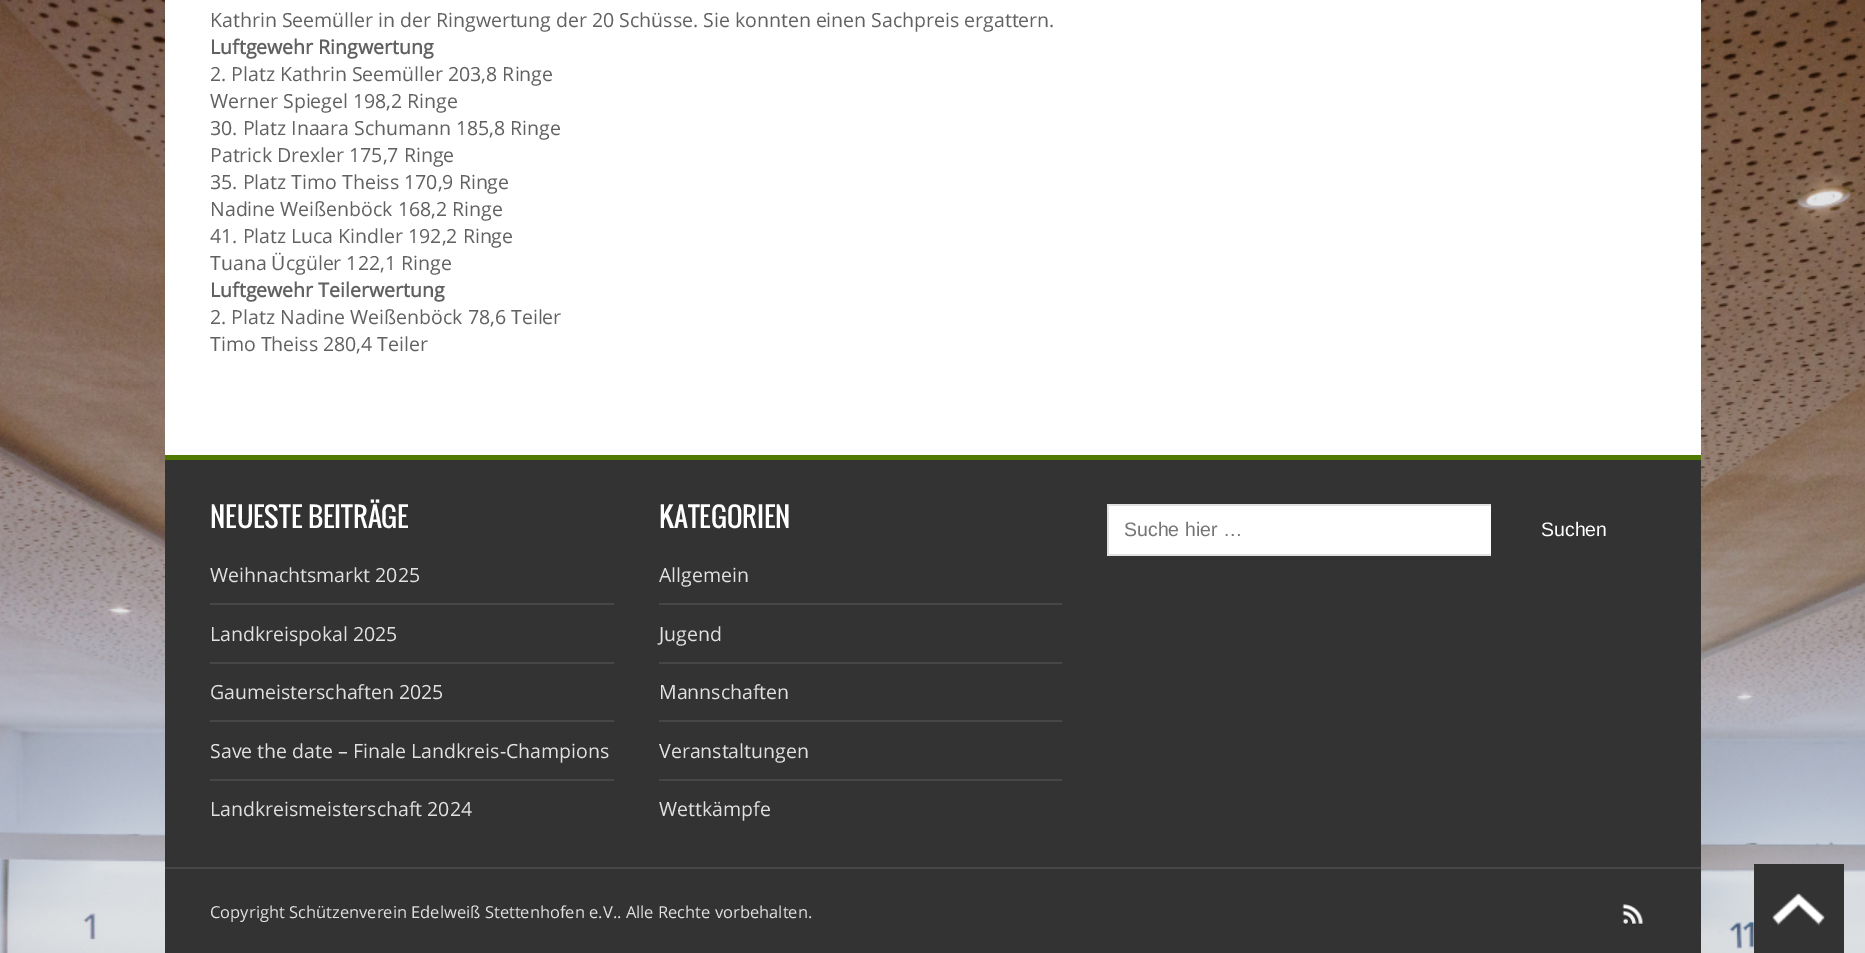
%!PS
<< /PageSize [1865 953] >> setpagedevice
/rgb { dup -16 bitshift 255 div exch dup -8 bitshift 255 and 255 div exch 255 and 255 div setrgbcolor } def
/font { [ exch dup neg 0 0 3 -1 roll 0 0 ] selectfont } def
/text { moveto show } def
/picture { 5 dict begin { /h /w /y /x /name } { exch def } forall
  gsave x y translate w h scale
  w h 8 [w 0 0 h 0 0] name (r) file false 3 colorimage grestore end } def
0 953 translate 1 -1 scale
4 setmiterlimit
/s1 { /OpenSans-Regular 19.5 font 16#616161 rgb } def
/s2 { /OpenSans-Bold 19.5 font 16#616161 rgb } def
/s3 { /Oswald-Regular 27 font 16#FFFFFF rgb } def
/s4 { /OpenSans-Regular 19.5 font 16#E1E1E1 rgb } def
/s5 { /LiberationSans-Regular 19.5 font 16#757575 rgb } def
/s6 { /LiberationSans-Regular 19.5 font 16#FFFFFF rgb } def
/s7 { /OpenSans-Regular 16.5 font 16#E1E1E1 rgb } def
16#FFFFFF rgb
0 0 1865 953 rectfill
(pic1.raw) 0 0 1865 953 picture
165 0 1536 455 rectfill
s1
(Kathrin Seemüller in der Ringwertung der 20 Schüsse. Sie konnten einen Sachpreis ergattern.) 210 27 text
s2
(Luftgewehr Ringwertung) 210 54 text
s1
(2. Platz Kathrin Seemüller 203,8 Ringe) 210 81 text
(Werner Spiegel 198,2 Ringe) 210 108 text
(30. Platz Inaara Schumann 185,8 Ringe) 210 135 text
(Patrick Drexler 175,7 Ringe) 210 162 text
(35. Platz Timo Theiss 170,9 Ringe) 210 189 text
(Nadine Weißenböck 168,2 Ringe) 210 216 text
(41. Platz Luca Kindler 192,2 Ringe) 210 243 text
(Tuana Ücgüler 122,1 Ringe) 210 270 text
s2
(Luftgewehr Teilerwertung) 210 297 text
s1
(2. Platz Nadine Weißenböck 78,6 Teiler) 210 324 text
(Timo Theiss 280,4 Teiler) 210 351 text
16#333333 rgb
165 460 1536 493 rectfill
16#517B00 rgb
165 455 1536 5 rectfill
16#474747 rgb
165 867 1536 2 rectfill
s3
(NEUESTE BEITRÄGE) 210 528 text
16#474747 rgb
210 603 404 2 rectfill
s4
(Weihnachtsmarkt 2025) 210 582 text
16#474747 rgb
210 662 404 2 rectfill
s4
(Landkreispokal 2025) 210 641 text
16#474747 rgb
210 720 404 2 rectfill
s4
(Gaumeisterschaften 2025) 210 699 text
16#474747 rgb
210 779 404 2 rectfill
s4
(Save the date – Finale Landkreis-Champions) 210 758 text
(Landkreismeisterschaft 2024) 210 816 text
s3
(KATEGORIEN) 659 528 text
16#474747 rgb
659 603 403 2 rectfill
s4
(Allgemein) 659 582 text
16#474747 rgb
659 662 403 2 rectfill
s4
(Jugend) 659 641 text
16#474747 rgb
659 720 403 2 rectfill
s4
(Mannschaften) 659 699 text
16#474747 rgb
659 779 403 2 rectfill
s4
(Veranstaltungen) 659 758 text
(Wettkämpfe) 659 816 text
16#FFFFFF rgb
1109 506 382 48 rectfill
16#E1E1E1 rgb
1107 504 384 2 rectfill
1107 554 384 2 rectfill
1107 504 2 51 rectfill
s5
(Suche hier …) 1124 536 text
s6
(Suchen) 1541 536 text
s7
(Copyright Schützenverein Edelweiß Stettenhofen e.V.. Alle Rechte vorbehalten.) 210 918 text
(pic2.raw) 1622 904 22 21 picture
16#333333 rgb
1754 864 90 89 rectfill
(pic3.raw) 1772 893 53 33 picture
showpage
